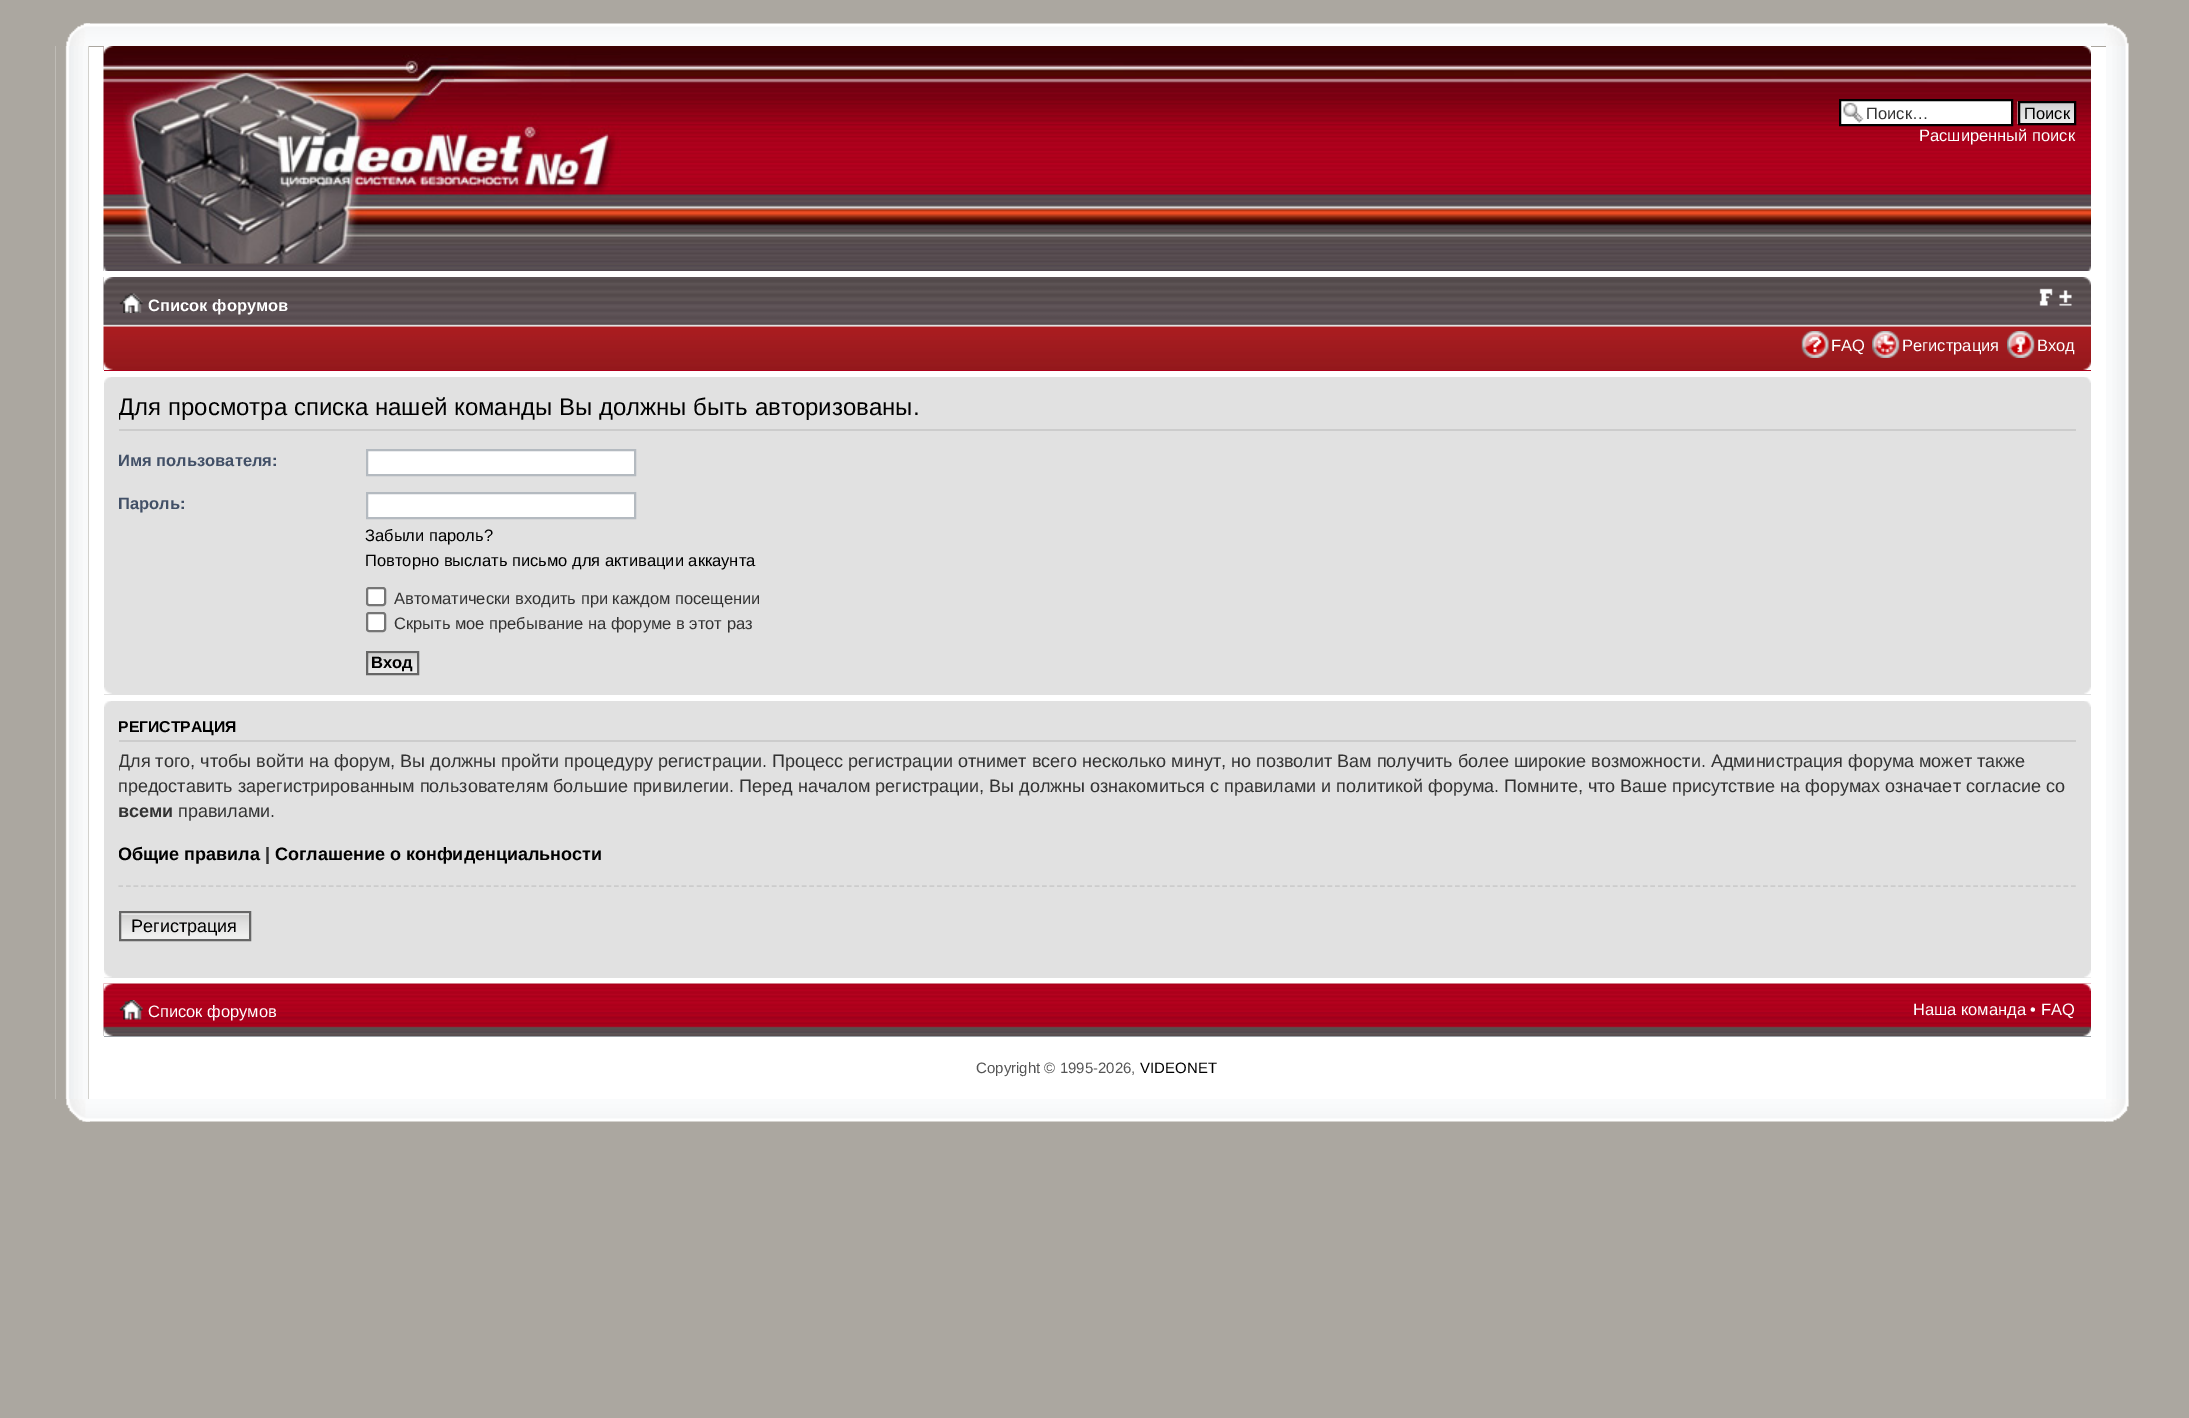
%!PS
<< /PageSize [2189 1418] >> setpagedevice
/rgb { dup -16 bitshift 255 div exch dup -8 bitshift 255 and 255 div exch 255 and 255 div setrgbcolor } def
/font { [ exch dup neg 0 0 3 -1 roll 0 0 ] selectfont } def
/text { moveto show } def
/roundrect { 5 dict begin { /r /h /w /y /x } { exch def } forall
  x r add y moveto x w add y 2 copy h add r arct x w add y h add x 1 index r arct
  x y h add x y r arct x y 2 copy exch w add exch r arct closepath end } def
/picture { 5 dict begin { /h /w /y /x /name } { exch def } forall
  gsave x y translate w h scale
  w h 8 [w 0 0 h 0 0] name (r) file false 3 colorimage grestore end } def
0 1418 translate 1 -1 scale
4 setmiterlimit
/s1 { /LiberationSans-Regular 16.5 font 16#333333 rgb } def
/s2 { /LiberationSans-Regular 16.5 font 16#000000 rgb } def
/s3 { /LiberationSans-Regular 16.5 font 16#FFFFFF rgb } def
/s4 { /LiberationSans-Bold 16.5 font 16#FFFFFF rgb } def
/s5 { /LiberationSans-Regular 24 font 16#000000 rgb } def
/s6 { /LiberationSans-Bold 16.5 font 16#425067 rgb } def
/s7 { /LiberationSans-Bold 16.5 font 16#000000 rgb } def
/s8 { /LiberationSans-Bold 15.75 font 16#000000 rgb } def
/s9 { /LiberationSans-Regular 18 font 16#333333 rgb } def
/s10 { /LiberationSans-Bold 18 font 16#333333 rgb } def
/s11 { /LiberationSans-Bold 18 font 16#000000 rgb } def
/s12 { /LiberationSans-Regular 18 font 16#000000 rgb } def
/s13 { /LiberationSans-Regular 15 font 16#555555 rgb } def
/s14 { /LiberationSans-Regular 15 font 16#000000 rgb } def
16#ABA7A0 rgb
0 0 2189 1418 rectfill
(pic1.raw) 66 23 24 23 picture
(pic2.raw) 85 23 2021 23 picture
(pic3.raw) 2104 23 25 23 picture
(pic4.raw) 55 46 34 1053 picture
(pic5.raw) 2106 46 23 1053 picture
16#FFFFFF rgb
89 47 2017 1052 rectfill
(pic6.raw) 103 46 1988 225 picture
(pic7.raw) 103 46 11 8 picture
(pic8.raw) 2082 46 9 8 picture
(pic9.raw) 123 54 498 210 picture
1841 101 170 23 rectfill
(pic10.raw) 1843 102 21 21 picture
16#000000 rgb
2 setlinewidth
1840 100 172 25 rectstroke
s1
(Поиск…) 1866 119 text
(pic11.raw) 2017 101 57 23 picture
16#000000 rgb
2019 102 56 22 rectstroke
(Поиск) 2024 119 text
s3
(Расширенный поиск) 1919 141 text
(pic12.raw) 103 266 5 5 picture
(pic13.raw) 2087 266 4 5 picture
16#AE001C rgb
104 370 1987 1 rectfill
(pic14.raw) 103 277 1988 93 picture
(pic15.raw) 103 277 11 8 picture
(pic16.raw) 2082 277 9 8 picture
(pic17.raw) 119 293 24 20 picture
s4
(Список форумов) 148 311 text
(pic18.raw) 2039 288 33 18 picture
(pic19.raw) 1801 331 28 27 picture
s3
(FAQ) 1831 351 text
(pic20.raw) 1872 331 28 27 picture
(Регистрация) 1902 351 text
(pic21.raw) 2007 331 28 27 picture
(Вход) 2037 351 text
(pic22.raw) 103 362 10 8 picture
(pic23.raw) 2083 362 8 8 picture
16#E1E1E1 rgb
104 377 1987 318 rectfill
(pic24.raw) 104 377 7 6 picture
(pic25.raw) 2084 377 7 6 picture
16#CCCCCC rgb
119 429 1957 2 rectfill
gsave
119 384 1957 303 rectclip
s5
(Для просмотра списка нашей команды Вы должны быть авторизованы.) 118 415 text
grestore
gsave
119 443 1957 43 rectclip
s6
(Имя пользователя:) 118 466 text
grestore
16#FFFFFF rgb
367 450 moveto 635 450 lineto 635 475 lineto 367 475 lineto closepath gsave fill grestore
16#B4BAC0 rgb
stroke
gsave
119 486 1957 95 rectclip
s6
(Пароль:) 118 509 text
grestore
16#FFFFFF rgb
367 493 moveto 635 493 lineto 635 518 lineto 367 518 lineto closepath gsave fill grestore
16#B4BAC0 rgb
stroke
s2
(Забыли пароль?) 365 541 text
(Повторно выслать письмо для активации аккаунта) 365 566 text
16#FFFFFF rgb
367 588 18 17 2 roundrect gsave fill grestore
16#767676 rgb
stroke
s1
(Автоматически входить при каждом посещении) 394 604 text
16#FFFFFF rgb
367 613 18 18 2 roundrect gsave fill grestore
16#767676 rgb
stroke
s1
(Скрыть мое пребывание на форуме в этот раз) 394 629 text
(pic26.raw) 368 653 49 20 picture
16#666666 rgb
367 652 51 22 rectstroke
s7
(Вход) 371 668 text
(pic27.raw) 104 687 8 7 picture
(pic28.raw) 2084 687 7 7 picture
16#E1E1E1 rgb
104 701 1987 277 rectfill
(pic24.raw) 104 701 7 6 picture
(pic25.raw) 2084 701 7 6 picture
16#CCCCCC rgb
119 740 1957 2 rectfill
gsave
119 708 1957 263 rectclip
s8
(РЕГИСТРАЦИЯ) 118 732 text
s9
(Для того, чтобы войти на форум, Вы должны пройти процедуру регистрации. Процесс регистрации отнимет всего несколько минут, но позволит Вам получить более широкие возможности. Администрация форума может также) 118 767 text
grestore
s9
(предоставить зарегистрированным пользователям большие привилегии. Перед началом регистрации, Вы должны ознакомиться с правилами и политикой форума. Помните, что Ваше присутствие на форумах означает согласие со) 118 792 text
s10
(всеми) 118 817 text
s9
(правилами.) 178 817 text
gsave
119 708 1957 263 rectclip
s11
(Общие правила) 118 860 text
grestore
s10
(|) 265 860 text
s11
(Соглашение о конфиденциальности) 275 860 text
16#CCCCCC rgb
1.5 setlinewidth
[4.5 3.01] 0 setdash
118.5 886 moveto 2076 886 lineto stroke
(pic29.raw) 118 913 131 27 picture
16#666666 rgb
2 setlinewidth
[] 0 setdash
120 912 130 28 rectstroke
s12
(Регистрация) 131 932 text
(pic30.raw) 104 970 8 8 picture
(pic31.raw) 2084 970 7 8 picture
16#9AA0A6 rgb
104 1036 1987 1 rectfill
(pic32.raw) 103 983 1988 53 picture
(pic33.raw) 103 983 10 8 picture
(pic34.raw) 2083 983 8 8 picture
(pic35.raw) 119 1000 24 20 picture
s3
(Список форумов) 148 1017 text
(Наша команда • FAQ) 1913 1015 text
(pic36.raw) 103 1028 10 8 picture
(pic37.raw) 2083 1028 8 8 picture
s13
(Copyright © 1995-2026,) 976 1073 text
s14
(VIDEONET) 1140 1073 text
(pic38.raw) 66 1099 24 23 picture
(pic39.raw) 85 1099 2021 23 picture
(pic40.raw) 2104 1099 25 23 picture
showpage
